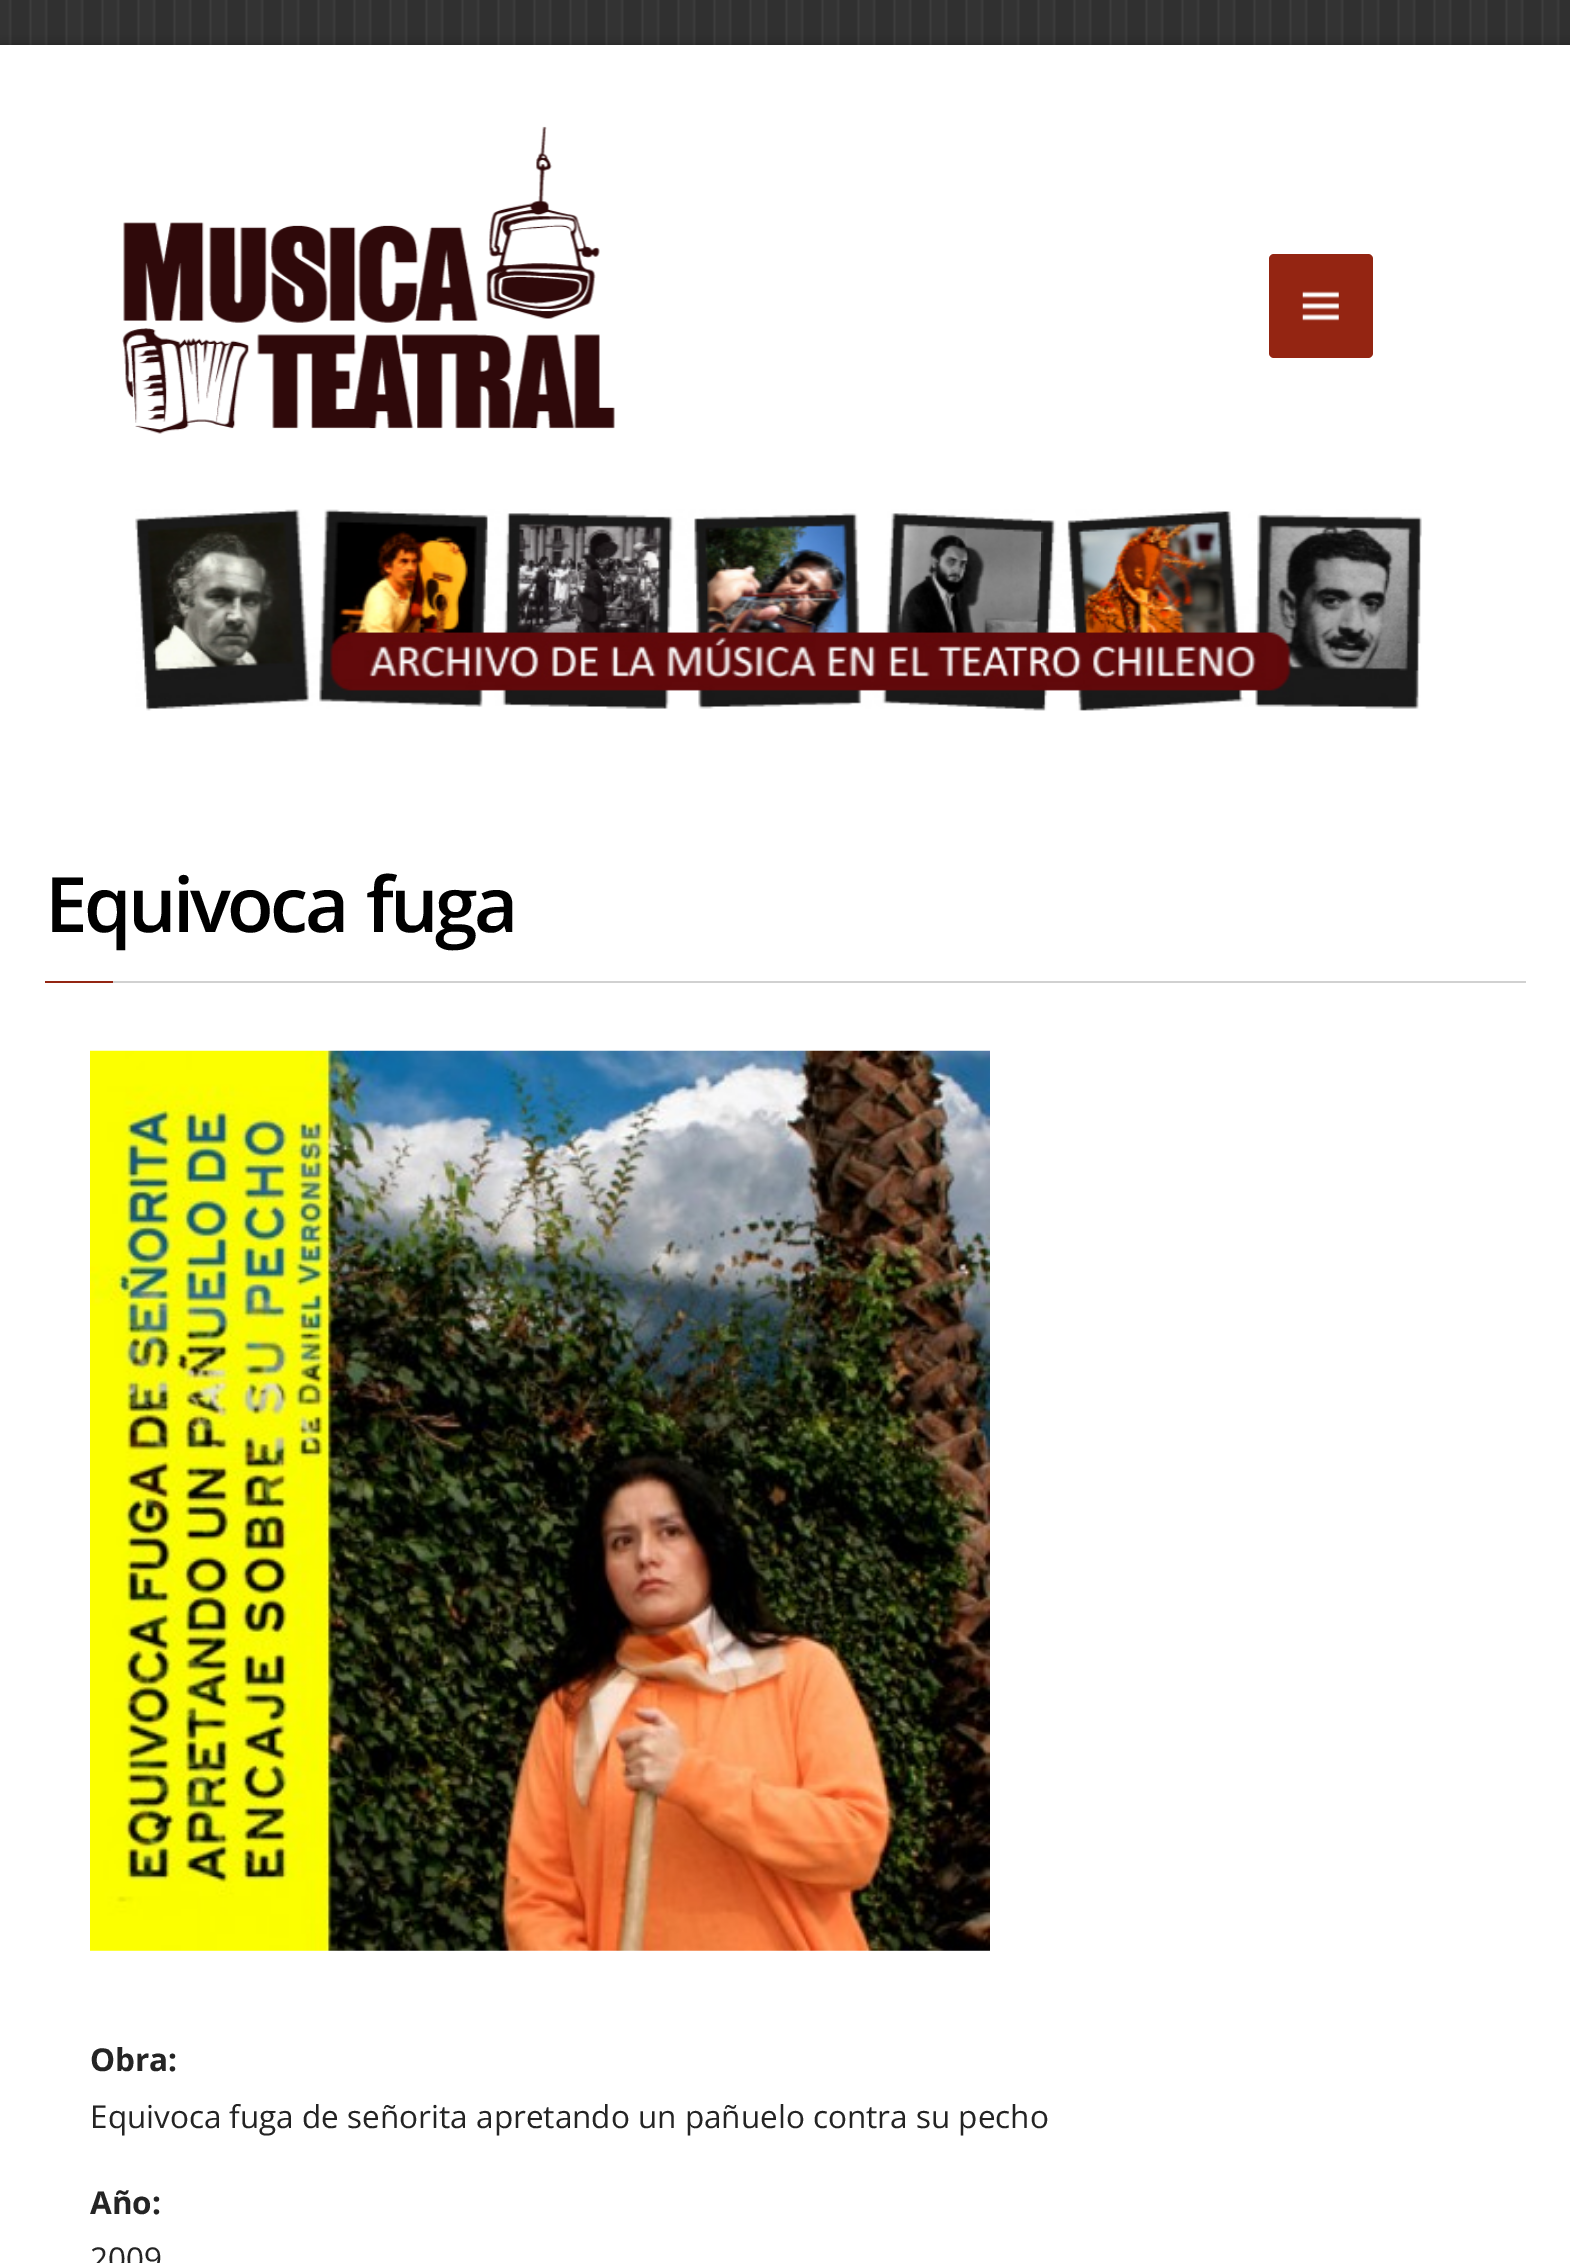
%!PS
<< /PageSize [1570 2263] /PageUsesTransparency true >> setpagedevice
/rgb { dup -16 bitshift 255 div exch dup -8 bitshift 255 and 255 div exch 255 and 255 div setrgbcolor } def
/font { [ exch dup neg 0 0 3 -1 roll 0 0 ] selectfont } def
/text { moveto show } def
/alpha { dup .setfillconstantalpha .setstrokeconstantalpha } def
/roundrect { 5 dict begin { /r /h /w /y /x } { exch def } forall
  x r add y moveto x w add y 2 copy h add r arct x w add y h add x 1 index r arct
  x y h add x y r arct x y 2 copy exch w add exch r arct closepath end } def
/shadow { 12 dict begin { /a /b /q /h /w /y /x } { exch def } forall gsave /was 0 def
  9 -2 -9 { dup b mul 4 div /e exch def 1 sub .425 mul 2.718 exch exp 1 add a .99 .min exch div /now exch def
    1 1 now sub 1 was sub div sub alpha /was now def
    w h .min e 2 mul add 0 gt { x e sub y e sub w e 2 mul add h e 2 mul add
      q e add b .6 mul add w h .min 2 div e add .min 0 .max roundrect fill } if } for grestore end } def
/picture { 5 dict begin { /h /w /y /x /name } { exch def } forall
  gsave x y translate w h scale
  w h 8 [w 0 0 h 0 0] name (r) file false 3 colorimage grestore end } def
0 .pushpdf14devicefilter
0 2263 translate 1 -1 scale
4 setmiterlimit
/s1 { /OpenSans-Bold 31.5 font 16#242424 rgb } def
/s2 { /OpenSans-Regular 31.5 font 16#242424 rgb } def
16#FFFFFF rgb
0 0 1570 2263 rectfill
(pic1.raw) 0 0 1570 45 picture
16#000000 rgb
0 47 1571 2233 0 5.5 0.4 shadow
16#FFFFFF rgb
0 45 1570 2218 rectfill
(pic2.raw) 122 126 493 308 picture
16#942512 rgb
1269 254 104 104 5 roundrect fill
(pic3.raw) 1302 291 37 30 picture
(pic4.raw) 135 509 1287 202 picture
/OpenSans-SemiBold 76.5 font
16#000000 rgb
45 932 moveto 5 0 32 -3.75 0 (Equivoca fuga) awidthshow
16#D1D1D1 rgb
113 981 1413 2 rectfill
16#942512 rgb
45 981 68 2 rectfill
(pic5.raw) 90 1050 900 901 picture
s1
(Obra:) 90 2071 text
s2
(Equivoca fuga de señorita apretando un pañuelo contra su pecho) 90 2128 text
s1
(Año:) 90 2214 text
s2
(2009) 90 2270 text
.poppdf14devicefilter showpage
